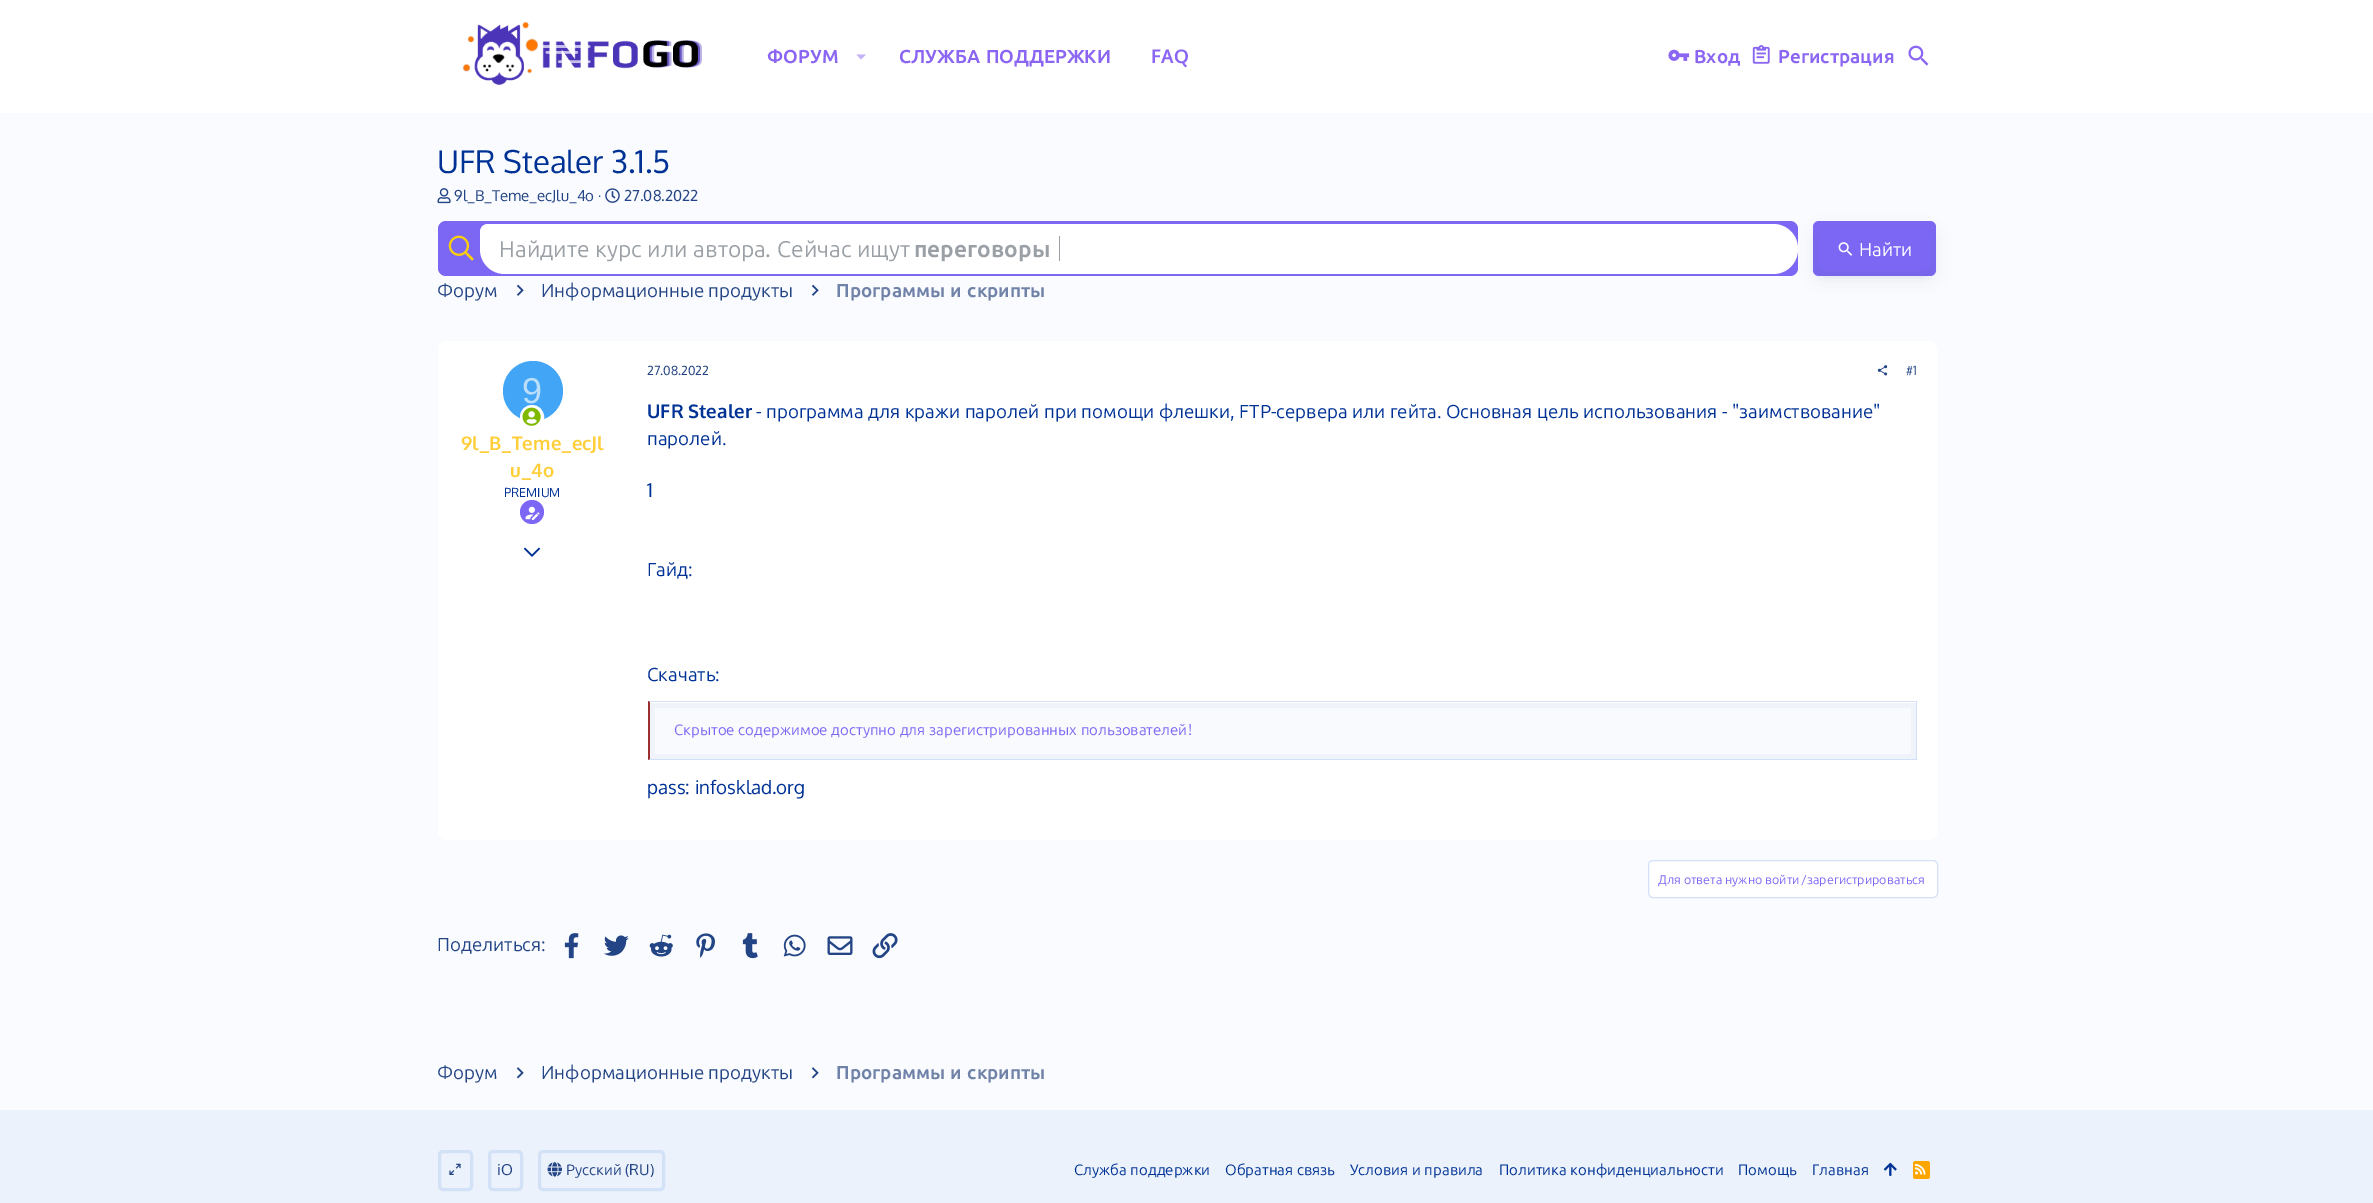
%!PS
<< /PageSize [2373 1203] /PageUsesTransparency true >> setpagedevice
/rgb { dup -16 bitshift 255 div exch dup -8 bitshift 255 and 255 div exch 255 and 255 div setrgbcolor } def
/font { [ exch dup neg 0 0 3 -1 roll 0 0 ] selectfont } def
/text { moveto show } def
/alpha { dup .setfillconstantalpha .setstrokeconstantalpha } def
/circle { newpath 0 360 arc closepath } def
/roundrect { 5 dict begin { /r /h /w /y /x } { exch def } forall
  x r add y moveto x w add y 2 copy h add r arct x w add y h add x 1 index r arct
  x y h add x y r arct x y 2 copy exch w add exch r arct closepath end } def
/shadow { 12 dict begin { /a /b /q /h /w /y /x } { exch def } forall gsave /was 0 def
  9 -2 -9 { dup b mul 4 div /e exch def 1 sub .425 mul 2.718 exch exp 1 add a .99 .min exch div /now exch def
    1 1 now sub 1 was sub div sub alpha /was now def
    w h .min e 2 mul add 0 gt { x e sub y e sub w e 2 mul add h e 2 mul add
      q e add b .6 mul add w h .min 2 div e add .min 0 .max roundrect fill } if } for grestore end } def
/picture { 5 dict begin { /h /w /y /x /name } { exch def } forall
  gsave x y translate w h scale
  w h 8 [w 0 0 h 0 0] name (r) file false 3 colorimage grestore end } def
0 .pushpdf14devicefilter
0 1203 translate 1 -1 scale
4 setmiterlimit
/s1 { /Ubuntu-Bold 18.75 font 16#8B66F2 rgb } def
/s2 { /Oxygen-Bold 18.75 font 16#8B66F2 rgb } def
/s3 { /Oxygen-Regular 31.25 font 16#003296 rgb } def
/s4 { /Oxygen-Regular 15 font 16#234485 rgb } def
/s5 { /Oxygen-Regular 22.75 font 16#9AA0A6 rgb } def
/s6 { /Ubuntu-Bold 22.75 font 16#9AA0A6 rgb } def
/s7 { /Ubuntu-Regular 18.75 font 16#FFFFFF rgb } def
/s8 { /Ubuntu-Regular 18.75 font 16#234485 rgb } def
/s9 { /LiberationSans-Regular 36 font 16#BBDEFB rgb } def
/s10 { /Oxygen-Bold 18.75 font 16#FFCE38 rgb } def
/s11 { /Oxygen-Regular 12.5 font 16#003296 rgb } def
/s12 { /Oxygen-Regular 12.5 font 16#234485 rgb } def
/s13 { /Oxygen-Bold 18.75 font 16#003296 rgb } def
/s14 { /Ubuntu-Regular 18.75 font 16#003296 rgb } def
/s15 { /Oxygen-Regular 18.75 font 16#003296 rgb } def
/s16 { /Oxygen-Regular 15 font 16#7C67F5 rgb } def
/s17 { /Ubuntu-Regular 12.5 font 16#7C67F5 rgb } def
/s18 { /Oxygen-Regular 12.5 font 16#7C67F5 rgb } def
/s19 { /Ubuntu-Regular 15 font 16#234485 rgb } def
/s20 { /Ubuntu-Regular 15 font 16#003296 rgb } def
16#F9FBFE rgb
0 0 2373 1203 rectfill
16#FFFFFF rgb
0 0 2373 113 rectfill
(pic1.raw) 462 22 240 63 picture
s1
(ФОРУМ) 767 63 text
16#C5B3F9 rgb
856.5 54.5 moveto 861 59.5 lineto 866 54.5 lineto closepath fill
16#8B66F2 rgb
899 63 moveto 1 0 32 (СЛУЖБА ПОДДЕРЖКИ) widthshow
s2
(FAQ) 1151 63 text
(pic2.raw) 1668 49 22 12 picture
s1
(Вход) 1694 63 text
(pic3.raw) 1752 45 18 19 picture
(Регистрация) 1778 63 text
(pic4.raw) 1908 45 21 21 picture
s3
(UFR Stealer 3.1.5) 437 173 text
(pic5.raw) 437 188 14 16 picture
s4
(9l_B_Teme_ecJlu_4o ·) 454 201 text
(pic6.raw) 605 188 15 15 picture
(27.08.2022) 624 201 text
16#7C67F5 rgb
438 221 1360 55 8 roundrect fill
(pic7.raw) 448 235 26 26 picture
16#FFFFFF rgb
488 224 moveto 1773 224 lineto 1787 224 1798 235 1798 249 curveto 1798 263 1787 274 1773 274 curveto 505 274 lineto 491 274 480 263 480 249 curveto 480 232 lineto 480 227.5 483.5 224 488 224 curveto closepath fill
/Ubuntu-Regular 22.75 font
16#9AA0A6 rgb
499 257 moveto 0.5 0 32 (Найдите курс или автора) widthshow
s5
(.) 765 257 text
/Ubuntu-Regular 22.75 font
777 257 moveto 0.5 0 32 (Сейчас ищут) widthshow
s6
(переговоры) 914 257 text
1059 236 1 25 rectfill
16#7C67F5 rgb
1813 221 123 55 6 roundrect fill
gsave
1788 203 moveto 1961 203 lineto 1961 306 lineto 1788 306 lineto closepath 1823 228 moveto 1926 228 lineto 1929 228 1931 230 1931 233 curveto 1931 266 lineto 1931 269 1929 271 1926 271 curveto 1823 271 lineto 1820 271 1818 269 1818 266 curveto 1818 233 lineto 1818 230 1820 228 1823 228 curveto closepath eoclip newpath
16#586A99 rgb
1818 233 113 43 5 9.5 0.2 shadow
grestore
(pic8.raw) 1838 242 15 14 picture
s7
(Найти) 1859 256 text
s8
(Форум) 437 297 text
(pic9.raw) 516 284 8 12 picture
(Информационные продукты) 541 297 text
(pic9.raw) 811 284 8 12 picture
/Ubuntu-Bold 18.75 font
16#7082A7 rgb
836 297 moveto 1 0 32 (Программы и скрипты) widthshow
16#FFFFFF rgb
438 341 1500 499 10 roundrect fill
447 341 moveto 628 341 lineto 628 840 lineto 447 840 lineto 442 840 438 836 438 831 curveto 438 350 lineto 438 345 442 341 447 341 curveto closepath fill
16#42A5F5 rgb
533 391 30 circle fill
s9
(9) 522 403 text
16#FFFFFF rgb
532 417 10.5 circle gsave fill grestore
3 setlinewidth
stroke
(pic10.raw) 522 407 19 19 picture
s10
(9l_B_Teme_ecJl) 461 450 text
(u_4o) 510 477 text
s11
(PREMIUM) 504 497 text
16#7C67F5 rgb
532 512 12 circle fill
(pic11.raw) 525 506 15 14 picture
(pic12.raw) 523 547 18 10 picture
s12
(27.08.2022) 647 375 text
(pic13.raw) 1877 365 11 11 picture
(#1) 1906 375 text
s13
(UFR Stealer) 647 418 text
/Ubuntu-Regular 18.75 font
756 418 moveto 0.25 0 32 (- программа для кражи паролей при помощи флешки, FTP-сервера или гейта. Основная цель использования - "заимствование") widthshow
(паролей.) 647 445 text
s15
(1) 647 497 text
s14
(Гайд:) 647 576 text
(Скачать:) 647 681 text
16#F1F3FB rgb
650 703 1266 56 rectfill
16#D3E1F6 rgb
648 701 moveto 1918 701 lineto 1916 702 lineto 650 702 lineto closepath fill
1916 701 1 59 rectfill
1918 760 moveto 648 760 lineto 650 759 lineto 1916 759 lineto closepath fill
16#9C2F2F rgb
648 760 moveto 648 701 lineto 650 702 lineto 650 759 lineto closepath fill
16#F9FAFD rgb
655 708 1256 46 rectfill
/Ubuntu-Regular 15 font
16#7C67F5 rgb
674 735 moveto 0.25 0 32 (Скрытое содержимое доступно для зарегистрированных пользователей) widthshow
s16
(!) 1188 735 text
s15
(pass: infosklad.org) 647 794 text
16#FFFFFF rgb
1648.5 860.5 289 37 4.5 roundrect gsave fill grestore
16#D3E1F6 rgb
1 setlinewidth
stroke
s17
(Для ответа нужно войти) 1658 884 text
s18
(/) 1801 884 text
s17
(зарегистрироваться) 1807 884 text
s8
(Поделиться:) 437 951 text
(pic14.raw) 564 933 15 26 picture
(pic15.raw) 603 935 26 21 picture
(pic16.raw) 649 934 24 23 picture
(pic17.raw) 696 933 19 25 picture
(pic18.raw) 742 933 16 26 picture
(pic19.raw) 783 934 23 23 picture
(pic20.raw) 827 936 26 19 picture
(pic21.raw) 872 933 26 26 picture
(Форум) 437 1079 text
(pic22.raw) 516 1067 8 12 picture
(Информационные продукты) 541 1079 text
(pic22.raw) 811 1067 8 12 picture
/Ubuntu-Bold 18.75 font
16#7082A7 rgb
836 1079 moveto 1 0 32 (Программы и скрипты) widthshow
16#ECF2FB rgb
0 1110 2373 93 rectfill
16#D3E1F6 rgb
3 setlinewidth
439.5 1151.5 32 38 3.5 roundrect stroke
(pic23.raw) 449 1163 12 12 picture
489.5 1151.5 32 38 3.5 roundrect stroke
s4
(iO) 497 1175 text
16#D3E1F6 rgb
539.5 1151.5 124 38 3.5 roundrect stroke
(pic24.raw) 547 1162 15 15 picture
s19
(Русский) 566 1175 text
s4
(\(RU\)) 625 1175 text
/Ubuntu-Regular 15 font
16#003296 rgb
1074 1175 moveto 0.25 0 32 (Служба поддержки) widthshow
1225 1175 moveto 0.25 0 32 (Обратная связь) widthshow
1350 1175 moveto 0.25 0 32 (Условия и правила) widthshow
1499 1175 moveto 0.25 0 32 (Политика конфиденциальности) widthshow
(Помощь) 1738 1175 text
(Главная) 1812 1175 text
(pic25.raw) 1884 1162 13 14 picture
16#FFA500 rgb
1913 1161 17 18 2.5 roundrect fill
(pic26.raw) 1915 1164 11 11 picture
.poppdf14devicefilter showpage
